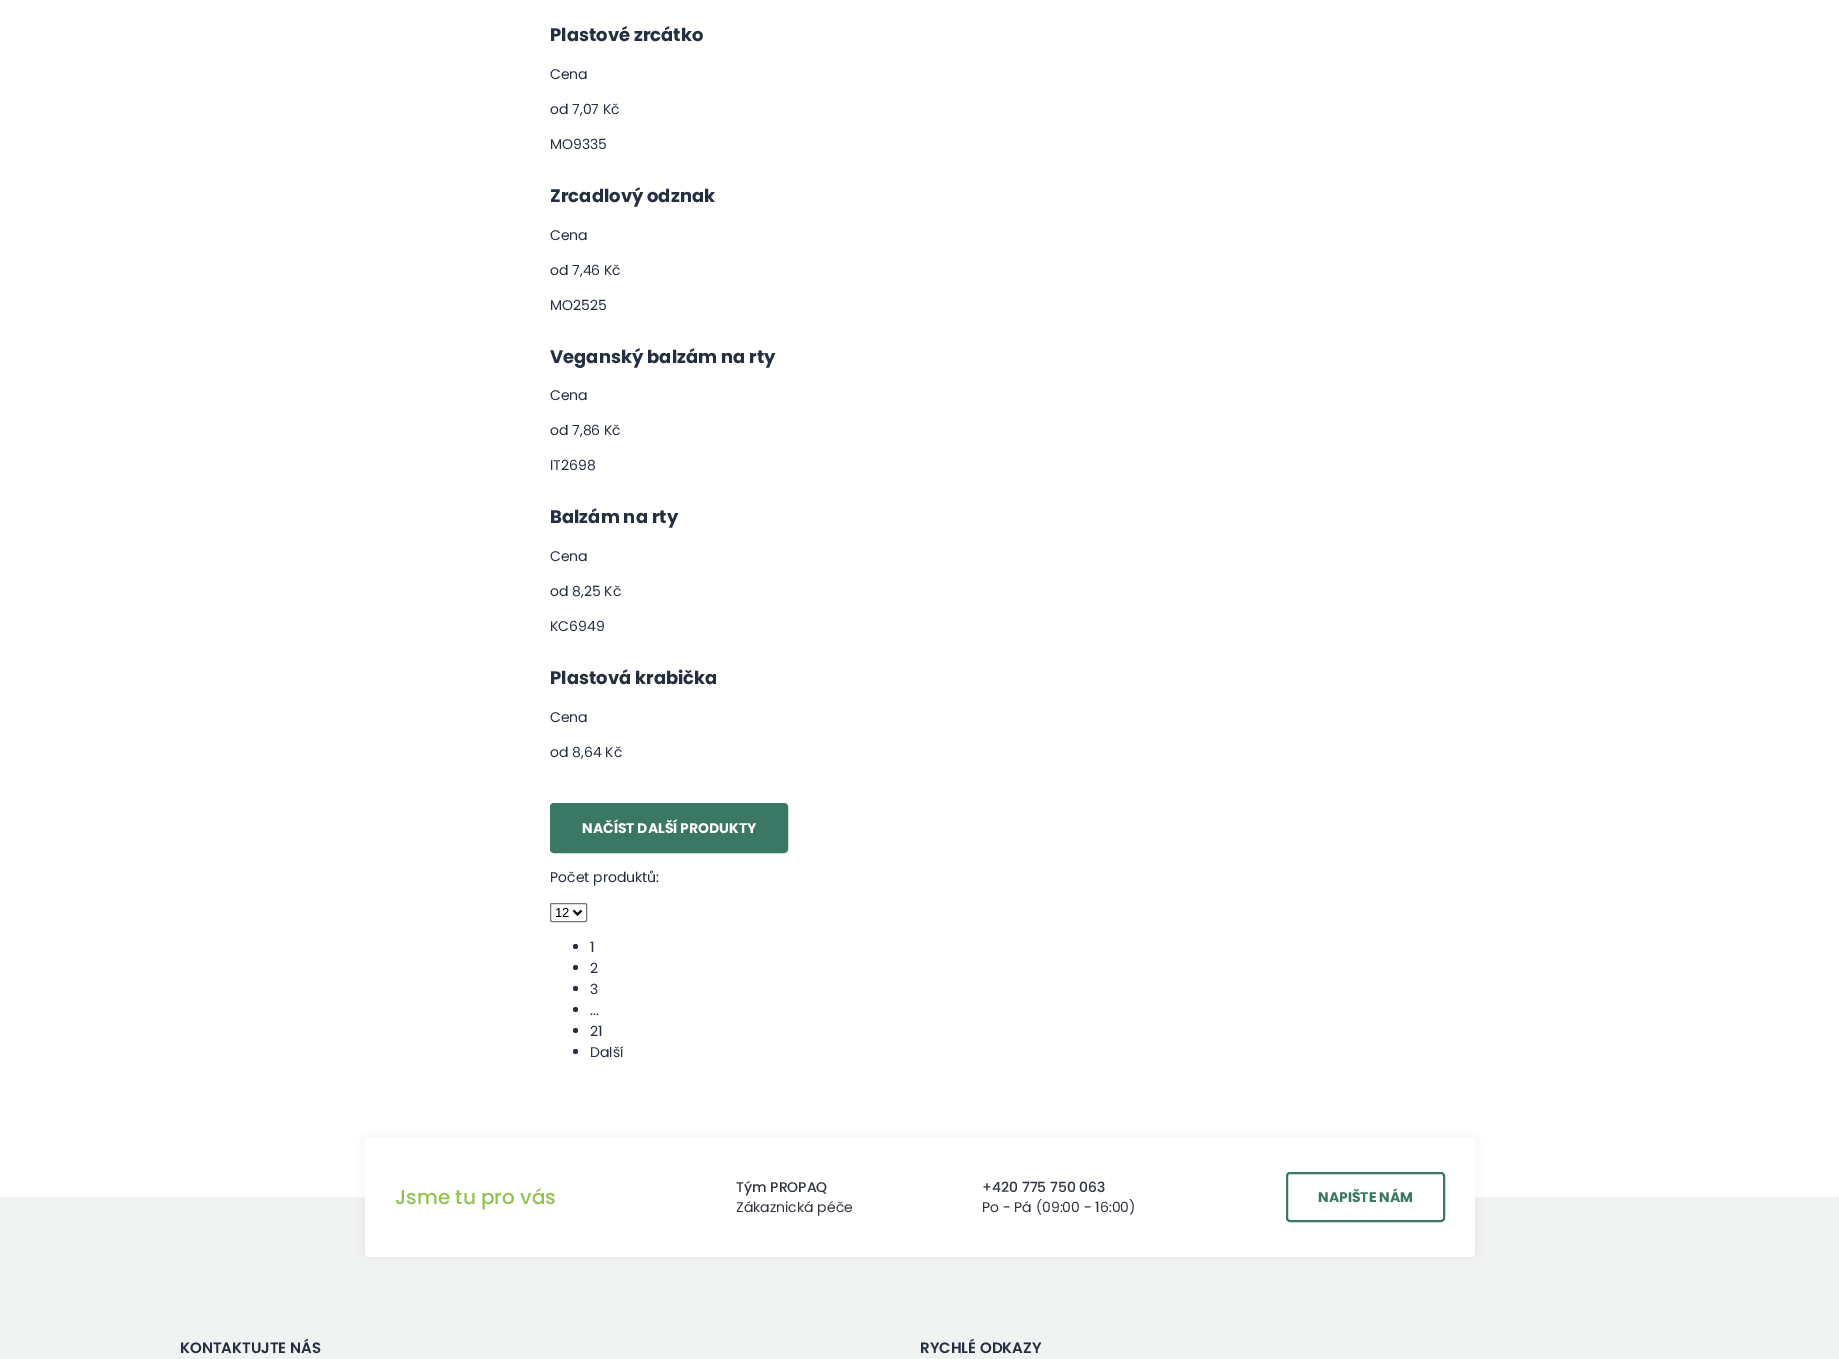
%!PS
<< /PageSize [1839 1359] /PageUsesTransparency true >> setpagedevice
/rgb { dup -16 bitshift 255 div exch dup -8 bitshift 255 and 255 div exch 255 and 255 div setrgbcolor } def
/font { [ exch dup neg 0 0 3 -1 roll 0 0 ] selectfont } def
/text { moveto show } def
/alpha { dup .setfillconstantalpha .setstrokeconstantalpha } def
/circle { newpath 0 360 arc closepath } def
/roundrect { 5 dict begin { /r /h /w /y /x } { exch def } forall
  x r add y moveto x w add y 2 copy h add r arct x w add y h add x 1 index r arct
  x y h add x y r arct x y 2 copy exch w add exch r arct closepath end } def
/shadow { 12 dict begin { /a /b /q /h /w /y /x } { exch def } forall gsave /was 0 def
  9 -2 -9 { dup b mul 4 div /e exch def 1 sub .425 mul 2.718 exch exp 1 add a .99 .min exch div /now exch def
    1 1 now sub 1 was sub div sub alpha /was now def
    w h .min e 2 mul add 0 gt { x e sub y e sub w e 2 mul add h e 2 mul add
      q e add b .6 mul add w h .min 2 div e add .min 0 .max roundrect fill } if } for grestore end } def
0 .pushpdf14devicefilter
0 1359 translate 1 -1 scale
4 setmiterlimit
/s1 { /Poppins-Bold 18 font 16#262E41 rgb } def
/s2 { /Poppins-Regular 14 font 16#262E41 rgb } def
/s3 { /Poppins-Bold 14 font 16#FFFFFF rgb } def
/s4 { /LiberationSans-Regular 13 font 16#000000 rgb } def
/s5 { /Poppins-Medium 20 font 16#92C24F rgb } def
/s6 { /Poppins-Medium 14 font 16#31353F rgb } def
/s7 { /Poppins-Regular 14 font 16#31353F rgb } def
/s8 { /Poppins-Bold 14 font 16#3A7764 rgb } def
/s9 { /Poppins-SemiBold 15 font 16#262E41 rgb } def
16#FFFFFF rgb
0 0 1839 1359 rectfill
s1
(Plastové zrcátko) 550 41 text
s2
(Cena) 550 79 text
(od 7,07 Kč) 550 114 text
(MO9335) 550 149 text
s1
(Zrcadlový odznak) 550 202 text
s2
(Cena) 550 240 text
(od 7,46 Kč) 550 275 text
(MO2525) 550 310 text
s1
(Veganský balzám na rty) 550 363 text
s2
(Cena) 550 400 text
(od 7,86 Kč) 550 435 text
(IT2698) 550 470 text
s1
(Balzám na rty) 550 523 text
s2
(Cena) 550 561 text
(od 8,25 Kč) 550 596 text
(KC6949) 550 631 text
s1
(Plastová krabička) 550 684 text
s2
(Cena) 550 722 text
(od 8,64 Kč) 550 757 text
16#3A7764 rgb
551 804 236 48 3 roundrect gsave fill grestore
2 setlinewidth
stroke
s3
(NAČÍST DALŠÍ PRODUKTY) 582 833 text
s2
(Počet produktů:) 550 882 text
16#767676 rgb
1 setlinewidth
550.5 903.5 36 18 1.5 roundrect stroke
16#000000 rgb
2 setlinewidth
573.5 910.5 moveto 577.5 914.5 lineto 581.5 910.5 lineto stroke
s4
(12) 555 917 text
16#262E41 rgb
575.5 946.5 2.5 circle fill
s2
(1) 590 952 text
575.5 967.5 2.5 circle fill
(2) 590 973 text
575.5 988.5 2.5 circle fill
(3) 590 994 text
575.5 1009.5 2.5 circle fill
(...) 590 1015 text
575.5 1030.5 2.5 circle fill
(21) 590 1036 text
575.5 1051.5 2.5 circle fill
(Další) 590 1057 text
16#F1F2F2 rgb
0 1197 1839 162 rectfill
16#000000 rgb
362 1134 1116 126 7 5 0.04 shadow
16#FFFFFF rgb
365 1137 1110 120 4 roundrect fill
s5
(Jsme tu pro vás) 395 1204 text
s6
(Tým PROPAQ) 736 1192 text
s7
(Zákaznická péče) 736 1212 text
s6
(+420 775 750 063) 982 1192 text
s7
(Po - Pá \(09:00 - 16:00\)) 982 1212 text
16#3A7764 rgb
1287 1173 157 48 3 roundrect stroke
s8
(NAPIŠTE NÁM) 1318 1202 text
s9
(KONTAKTUJTE NÁS) 180 1353 text
(RYCHLÉ ODKAZY) 920 1353 text
.poppdf14devicefilter showpage
